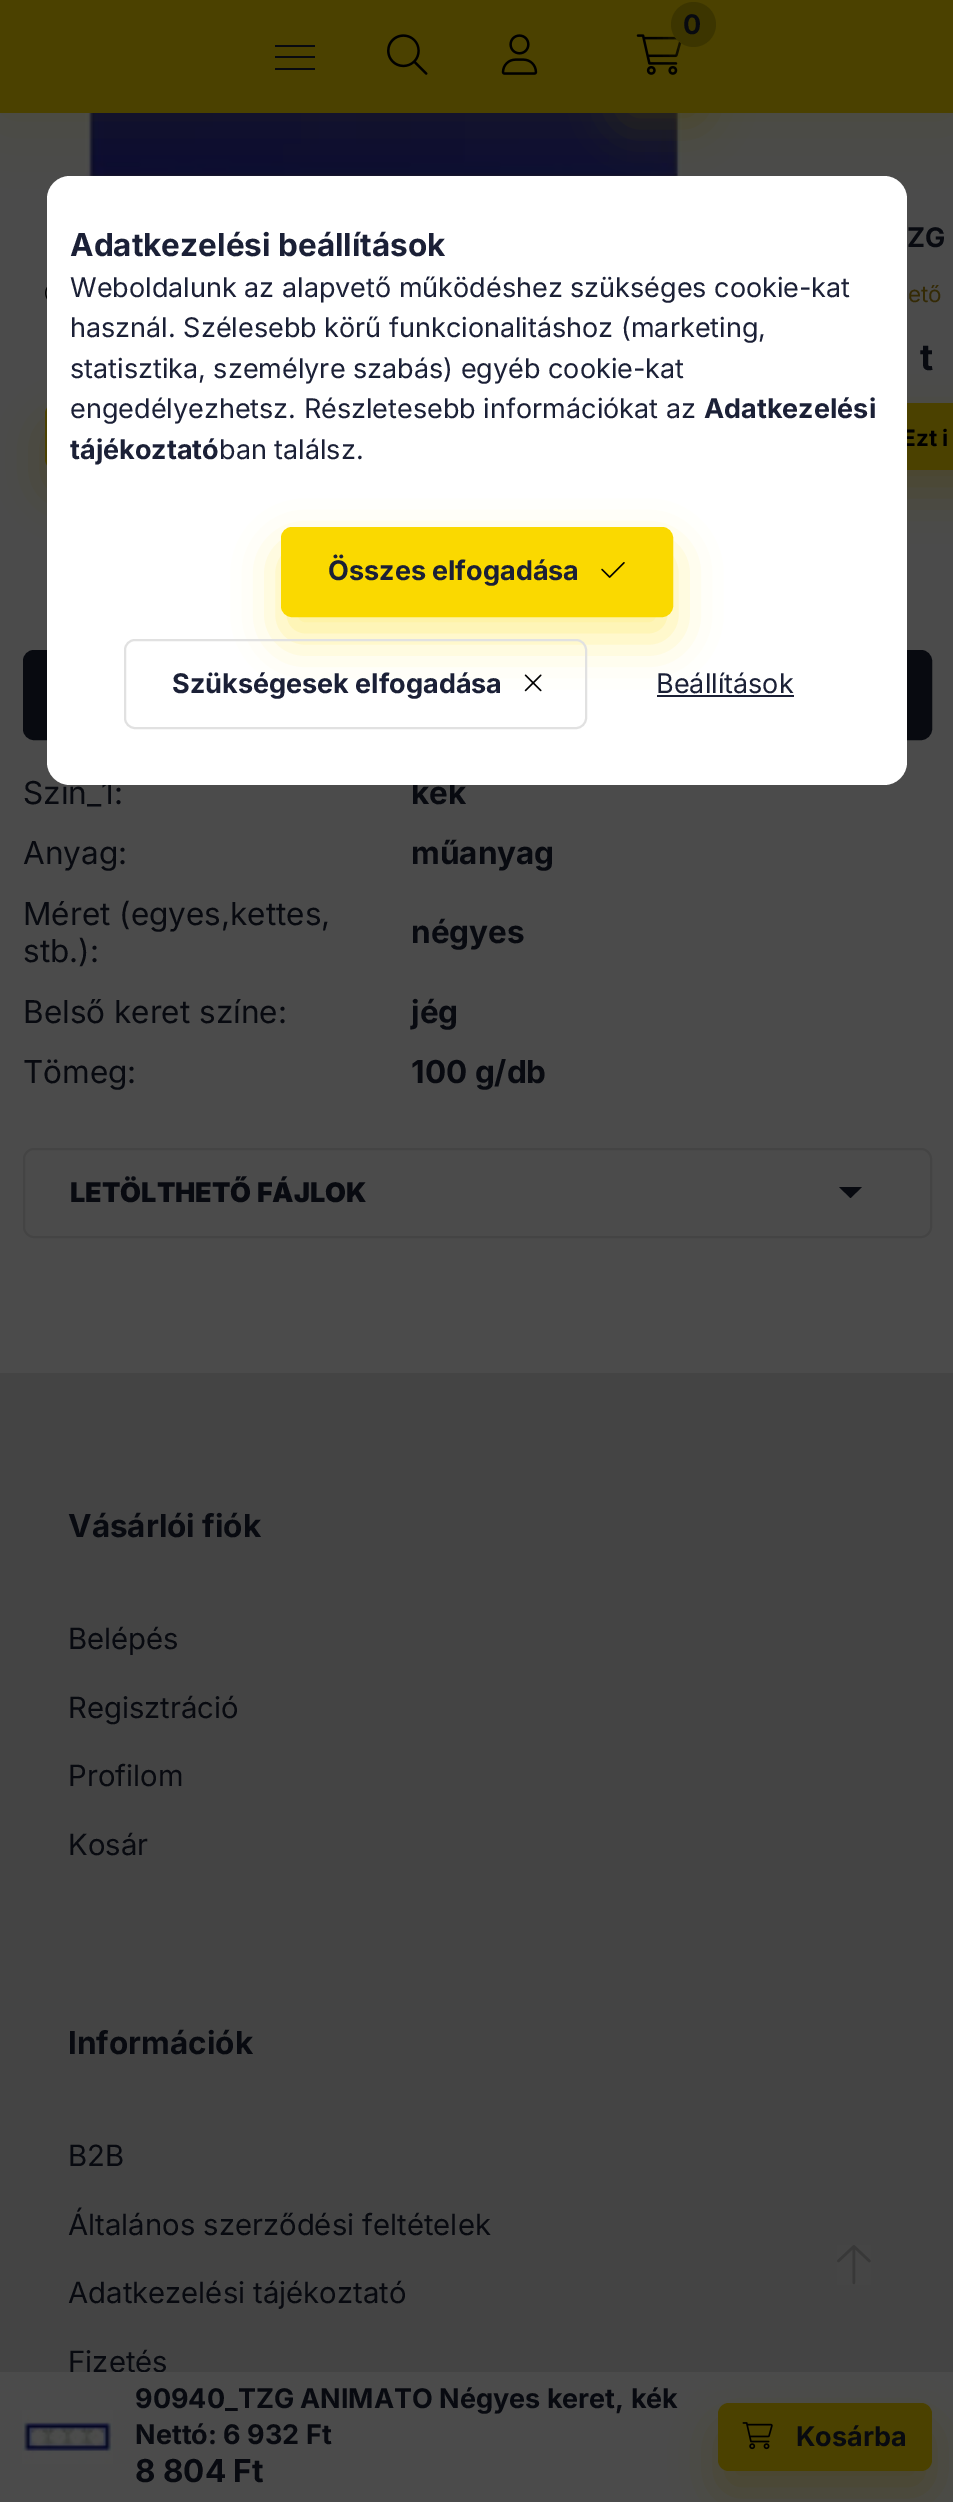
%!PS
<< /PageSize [953 2502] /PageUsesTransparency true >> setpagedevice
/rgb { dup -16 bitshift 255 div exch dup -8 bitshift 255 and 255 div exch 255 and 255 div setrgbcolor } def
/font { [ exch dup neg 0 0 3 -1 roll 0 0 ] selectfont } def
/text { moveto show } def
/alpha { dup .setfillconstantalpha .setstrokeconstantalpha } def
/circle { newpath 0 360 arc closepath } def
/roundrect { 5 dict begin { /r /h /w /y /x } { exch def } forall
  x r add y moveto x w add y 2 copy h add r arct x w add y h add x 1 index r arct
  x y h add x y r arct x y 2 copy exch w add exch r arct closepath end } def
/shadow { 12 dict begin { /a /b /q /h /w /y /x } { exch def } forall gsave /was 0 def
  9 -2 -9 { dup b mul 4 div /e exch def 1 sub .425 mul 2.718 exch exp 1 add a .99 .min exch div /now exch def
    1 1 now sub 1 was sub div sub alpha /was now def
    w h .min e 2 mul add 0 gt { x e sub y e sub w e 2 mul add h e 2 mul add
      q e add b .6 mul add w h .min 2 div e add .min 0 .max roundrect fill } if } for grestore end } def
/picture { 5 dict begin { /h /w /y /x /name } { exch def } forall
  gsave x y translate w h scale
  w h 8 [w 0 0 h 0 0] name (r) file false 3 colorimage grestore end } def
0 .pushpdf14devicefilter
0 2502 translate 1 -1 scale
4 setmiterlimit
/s1 { /Inter-Bold 27 font 16#080A10 rgb } def
/s2 { /Inter-Regular 22.5 font 16#342A05 rgb } def
/s3 { /Inter-Bold 36 font 16#080A10 rgb } def
/s4 { /Inter-Bold 22.5 font 16#000000 rgb } def
/s5 { /Inter-Regular 31.5 font 16#080A10 rgb } def
/s6 { /Inter-Bold 31.5 font 16#080A10 rgb } def
/s7 { /Inter-Black 27 font 16#080A10 rgb } def
/s8 { /Inter-Regular 29.25 font 16#080A10 rgb } def
/s9 { /Inter-Bold 31.5 font 16#1B2036 rgb } def
/s10 { /Inter-Regular 27 font 16#1B2036 rgb } def
/s11 { /Inter-Bold 27 font 16#1B2036 rgb } def
16#4B4B4B rgb
0 0 953 2502 rectfill
(pic4.raw) 85 113 597 63 picture
16#4B4100 rgb
0 0 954 113 0 34 0.2 shadow
0 0 953 113 rectfill
gsave
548 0 moveto 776 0 lineto 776 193 lineto 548 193 lineto closepath 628 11 moveto 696 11 lineto 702 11 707 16 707 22 curveto 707 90 lineto 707 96 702 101 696 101 curveto 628 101 lineto 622 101 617 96 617 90 curveto 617 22 lineto 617 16 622 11 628 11 curveto closepath eoclip newpath
617 34 90 90 11 22.5 0.4 shadow
grestore
(pic1.raw) 636 34 46 41 picture
671 14 45 45 22.5 11 0.4 shadow
16#3C3500 rgb
693.5 24.5 22.5 circle fill
s1
(0) 683 34 text
275 45 40 2 rectfill
275 56 40 2 rectfill
275 68 40 2 rectfill
(pic2.raw) 387 34 41 41 picture
(pic3.raw) 501 34 37 41 picture
(pic5.raw) 45 286 2 14 picture
16#4B4100 rgb
45 425 324 68 11 22.5 0.4 shadow
45 403 324 67 11 roundrect fill
s1
(ZG) 907 247 text
s2
(ető) 908 302 text
16#4B4100 rgb
788 425 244 68 11 22.5 0.4 shadow
s3
(t) 920 370 text
16#4B4100 rgb
907 403 46 67 rectfill
s4
(Ezt i) 902 446 text
16#080A10 rgb
24 651 907 88 10 roundrect gsave fill grestore
2 setlinewidth
stroke
s5
(Szín_1:) 23 804 text
s6
(kék) 411 804 text
s5
(Anyag:) 23 864 text
s6
(műanyag) 411 864 text
s5
(Méret \(egyes,kettes,) 23 925 text
(stb.\):) 23 962 text
s6
(négyes) 411 943 text
s5
(Belső keret színe:) 23 1023 text
s6
(jég) 411 1023 text
s5
(Tömeg:) 23 1083 text
s6
(100 g/db) 411 1083 text
16#444444 rgb
24 1149 907 88 10 roundrect stroke
s7
(LETÖLTHETŐ FÁJLOK) 70 1202 text
839 1187 moveto 862 1187 lineto 850.5 1198 lineto closepath fill
16#444444 rgb
0 1373 953 999 rectfill
s8
(Fizetés) 68 2372 text
16#4D4D4D rgb
114 2372 48 1 rectfill
(pic6.raw) 22 2410 91 54 picture
s1
(90940_TZG ANIMATO Négyes keret, kék) 135 2408 text
(Nettó: 6 932 Ft) 135 2444 text
s6
(8 804 Ft) 135 2482 text
16#4B4100 rgb
718 2426 214 67 11 22.5 0.4 shadow
718 2403 214 68 11 roundrect fill
(pic7.raw) 742 2422 31 28 picture
s1
(Kosárba) 796 2446 text
s6
(Vásárlói fiók) 68 1537 text
s8
(Belépés) 68 1649 text
(Regisztráció) 68 1718 text
(Profilom) 68 1786 text
(Kosár) 68 1855 text
s6
(Információk) 68 2054 text
s8
(B2B) 68 2166 text
(Általános szerződési feltételek) 68 2235 text
(Adatkezelési tájékoztató) 68 2303 text
16#FFFFFF rgb
47 176 860 609 23 roundrect fill
s9
(Adatkezelési beállítások) 70 256 text
s10
(Weboldalunk az alapvető működéshez szükséges cookie-kat) 70 297 text
(használ. Szélesebb körű funkcionalitáshoz \(marketing,) 70 337 text
(statisztika, személyre szabás\) egyéb cookie-kat) 70 378 text
(engedélyezhetsz. Részletesebb információkat az) 70 418 text
s11
(Adatkezelési) 704 418 text
(tájékoztató) 70 459 text
s10
(ban találsz.) 219 459 text
16#FAD900 rgb
281 549 392 90 11 22.5 0.4 shadow
282 528 390 88 10 roundrect gsave fill grestore
stroke
s11
(Összes elfogadása) 328 580 text
(pic8.raw) 601 562 24 16 picture
16#E1E1E1 rgb
125 640 461 88 10 roundrect stroke
s11
(Szükségesek elfogadása) 172 693 text
(pic9.raw) 524 674 18 18 picture
s10
(Beállítások) 656 693 text
657 695 137 2 rectfill
(pic10.raw) 837 2245 34 40 picture
.poppdf14devicefilter showpage
